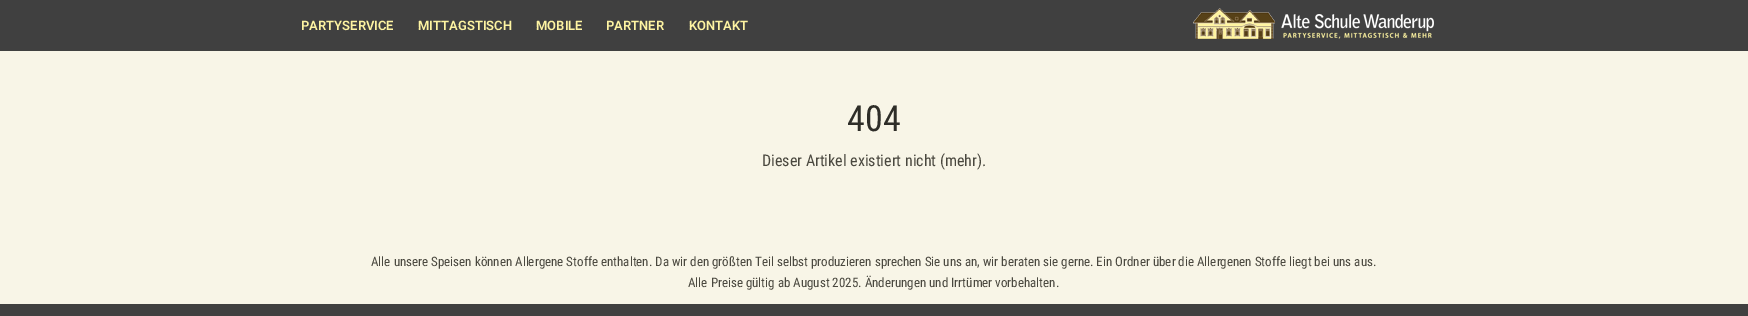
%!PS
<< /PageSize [1748 316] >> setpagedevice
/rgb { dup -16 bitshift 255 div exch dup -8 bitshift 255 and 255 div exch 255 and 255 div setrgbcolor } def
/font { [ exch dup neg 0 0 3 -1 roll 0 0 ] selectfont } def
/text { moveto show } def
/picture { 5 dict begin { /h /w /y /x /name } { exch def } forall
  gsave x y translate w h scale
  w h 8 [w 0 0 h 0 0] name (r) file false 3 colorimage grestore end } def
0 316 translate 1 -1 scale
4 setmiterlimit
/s1 { /Roboto-SemiBold 13 font 16#FEF4A2 rgb } def
/s2 { /RobotoCondensed-Regular 36 font 16#2E2D28 rgb } def
/s3 { /RobotoCondensed-Regular 16 font 16#4A483F rgb } def
/s4 { /RobotoCondensed-Regular 13 font 16#4A483F rgb } def
16#F8F5E7 rgb
0 0 1748 316 rectfill
16#404040 rgb
0 0 1748 51 rectfill
s1
(PARTYSERVICE) 301 30 text
(MITTAGSTISCH) 418 30 text
(MOBILE) 536 30 text
(PARTNER) 606 30 text
(KONTAKT) 689 30 text
(pic1.raw) 1193 8 241 31 picture
s2
(404) 847 131 text
s3
(Dieser Artikel existiert nicht \(mehr\).) 762 166 text
s4
(Alle unsere Speisen können Allergene Stoffe enthalten. Da wir den größten Teil selbst produzieren sprechen Sie uns an, wir beraten sie gerne. Ein Ordner über die Allergenen Stoffe liegt bei uns aus.) 371 266 text
(Alle Preise gültig ab August 2025. Änderungen und Irrtümer vorbehalten.) 688 287 text
16#404040 rgb
0 304 1748 12 rectfill
showpage
